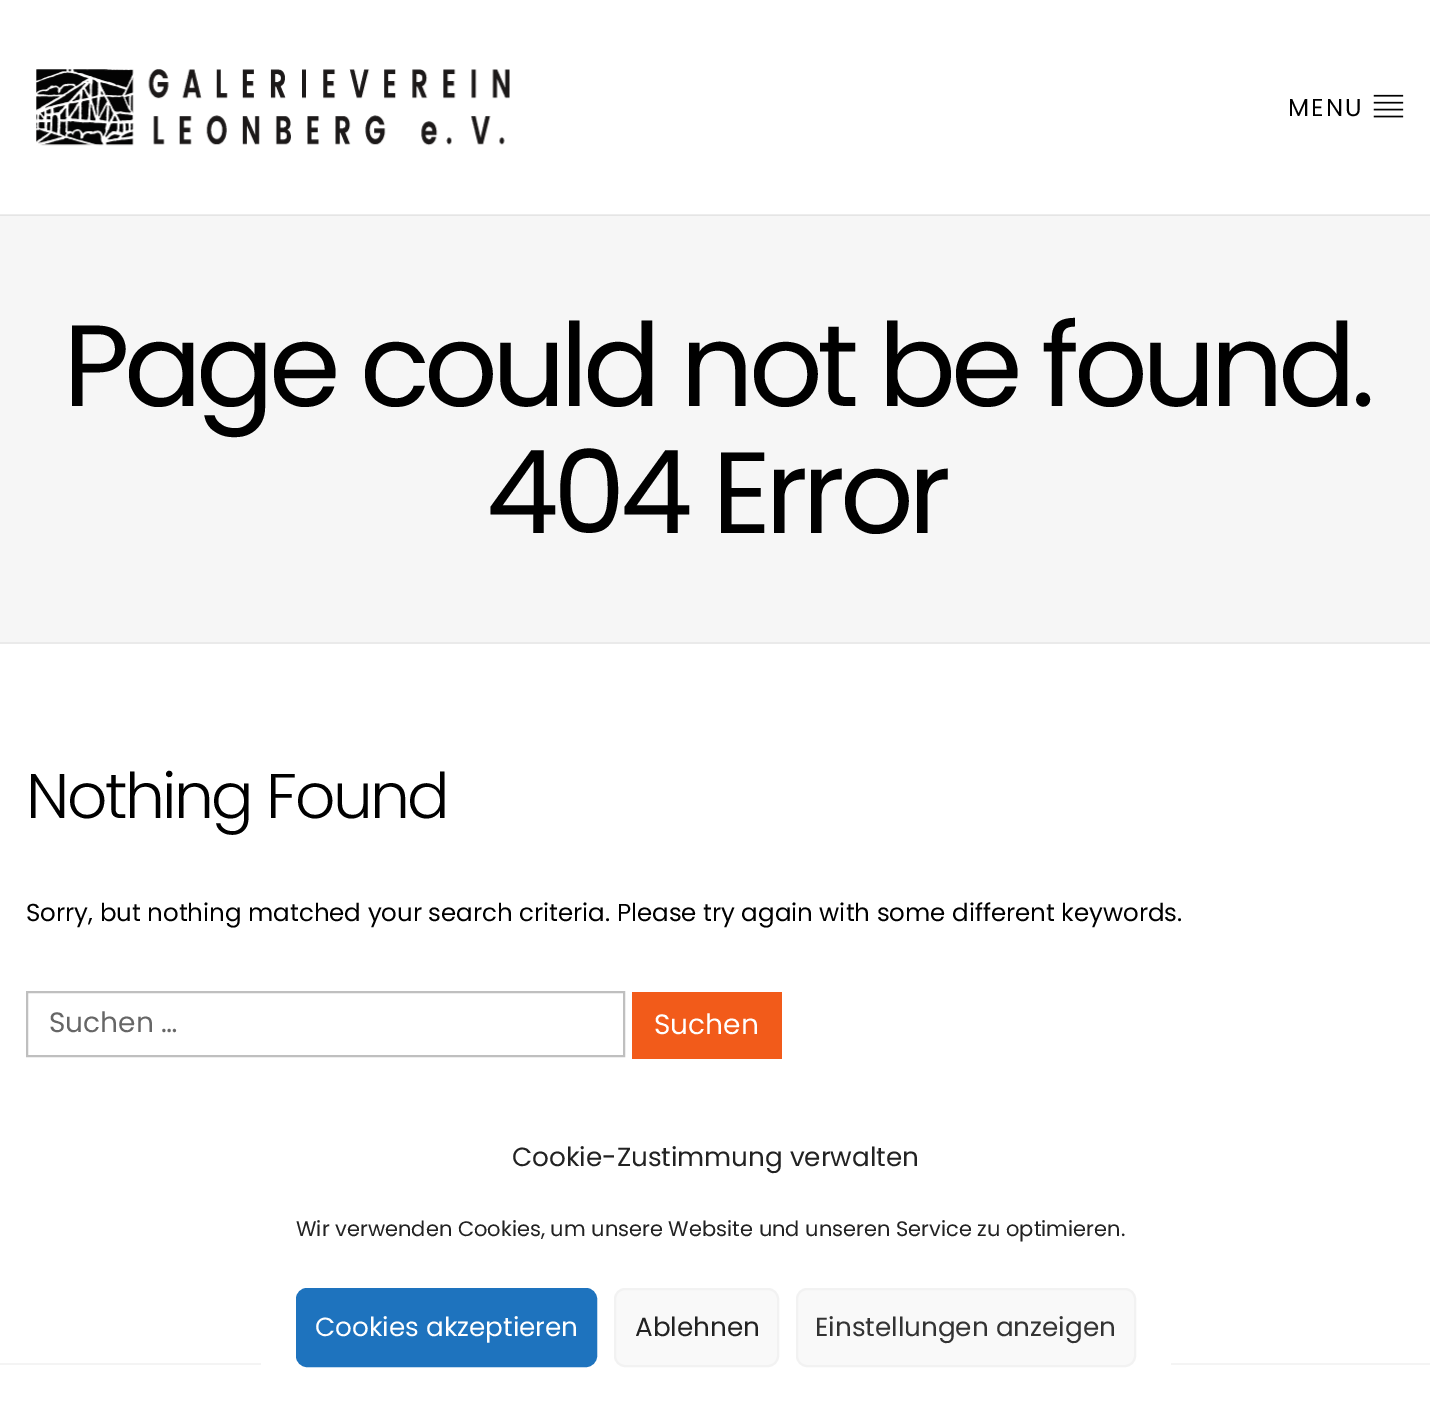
%!PS
<< /PageSize [1430 1409] >> setpagedevice
/rgb { dup -16 bitshift 255 div exch dup -8 bitshift 255 and 255 div exch 255 and 255 div setrgbcolor } def
/font { [ exch dup neg 0 0 3 -1 roll 0 0 ] selectfont } def
/text { moveto show } def
/roundrect { 5 dict begin { /r /h /w /y /x } { exch def } forall
  x r add y moveto x w add y 2 copy h add r arct x w add y h add x 1 index r arct
  x y h add x y r arct x y 2 copy exch w add exch r arct closepath end } def
/picture { 5 dict begin { /h /w /y /x /name } { exch def } forall
  gsave x y translate w h scale
  w h 8 [w 0 0 h 0 0] name (r) file false 3 colorimage grestore end } def
0 1409 translate 1 -1 scale
4 setmiterlimit
/s1 { /Poppins-Regular 24.5 font 16#000000 rgb } def
/s2 { /Poppins-Regular 28 font 16#666666 rgb } def
/s3 { /Poppins-Regular 28 font 16#FFFFFF rgb } def
/s4 { /Poppins-Regular 26.25 font 16#222222 rgb } def
/s5 { /Poppins-Regular 21 font 16#222222 rgb } def
/s6 { /Poppins-Regular 26.25 font 16#FFFFFF rgb } def
/s7 { /Poppins-Regular 26.25 font 16#333333 rgb } def
16#FFFFFF rgb
0 0 1430 1409 rectfill
16#EDEDED rgb
0 214 1430 1 rectfill
(pic1.raw) 36 69 474 77 picture
/Poppins-Regular 24.5 font
16#000000 rgb
1288 116 moveto 2 0 (MENU) ashow
(pic2.raw) 1373 94 31 24 picture
16#F6F6F6 rgb
0 216 1430 426 rectfill
16#E5E5E5 rgb
0 215 1430 1 rectfill
/Poppins-Regular 115.5 font
16#000000 rgb
63 406 moveto -5.75 0 (Page could not be found.) ashow
486 533 moveto -5.75 0 (404 Error) ashow
16#EAEAEA rgb
0 642 1430 2 rectfill
/Poppins-Light 63 font
16#000000 rgb
26 818 moveto -2.5 0 (Nothing Found) ashow
s1
(Sorry, but nothing matched your search criteria. Please try again with some different keywords.) 26 921 text
16#BFBFBF rgb
2 setlinewidth
27 992 597 64 rectstroke
s2
(Suchen …) 49 1032 text
16#F25B1A rgb
632 992 150 67 rectfill
s3
(Suchen) 654 1034 text
16#F4F4F4 rgb
0 1363 1430 2 rectfill
16#FFFFFF rgb
261 1113 910 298 21 roundrect fill
s4
(Cookie-Zustimmung verwalten) 512 1166 text
s5
(Wir verwenden Cookies, um unsere Website und unseren Service zu optimieren.) 296 1236 text
16#1E73BE rgb
297 1289 299 77 10 roundrect gsave fill grestore
stroke
s6
(Cookies akzeptieren) 315 1336 text
16#F9F9F9 rgb
615 1289 163 77 10 roundrect gsave fill grestore
16#F2F2F2 rgb
stroke
s4
(Ablehnen) 635 1336 text
16#F9F9F9 rgb
797 1289 338 77 10 roundrect gsave fill grestore
16#F2F2F2 rgb
stroke
s7
(Einstellungen anzeigen) 815 1336 text
showpage
